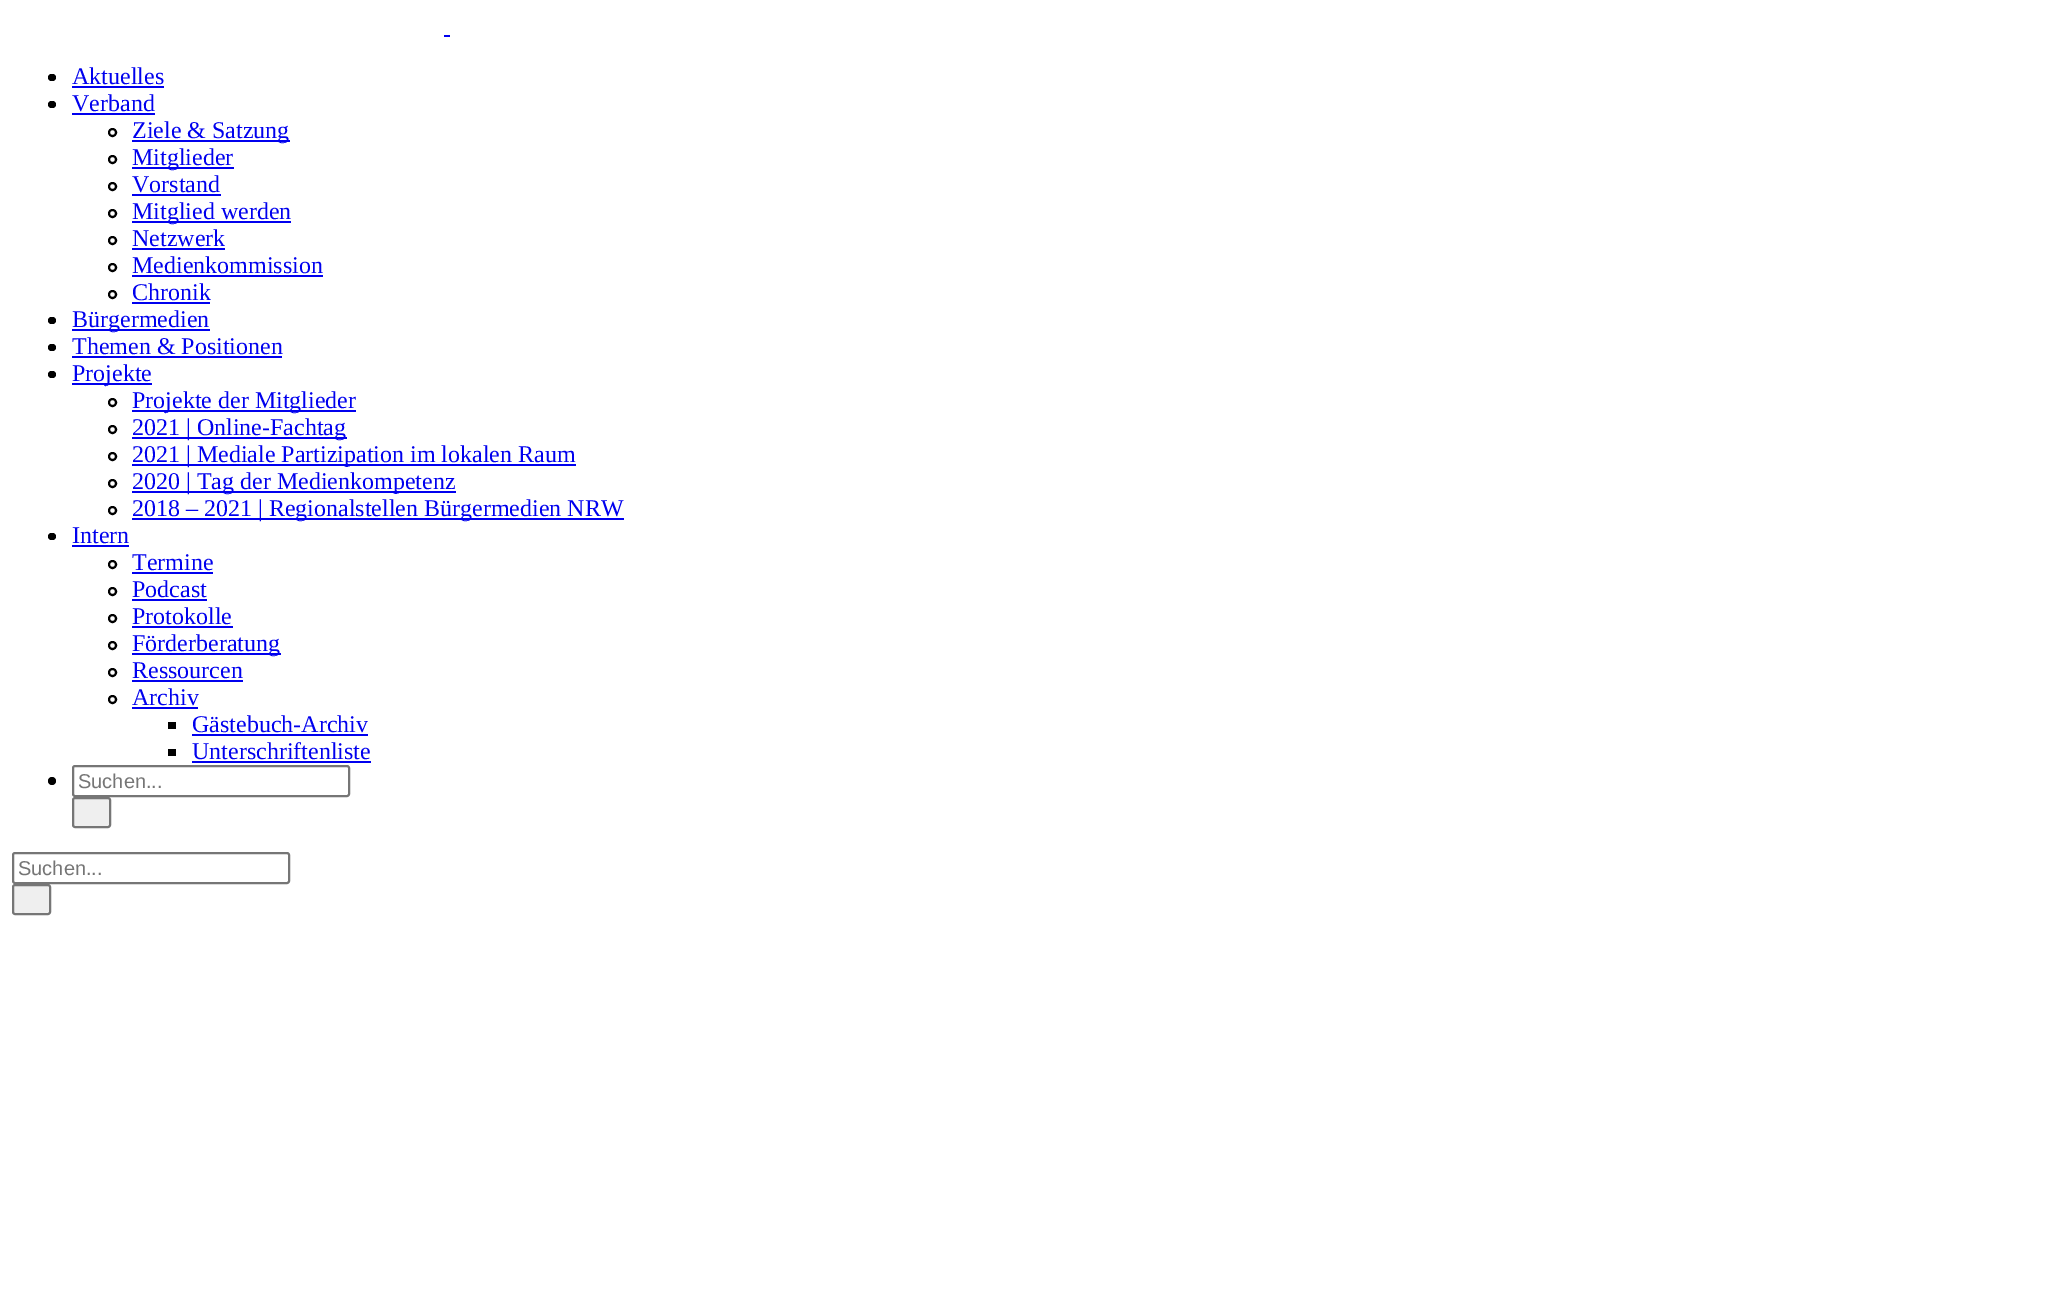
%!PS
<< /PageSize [2048 1298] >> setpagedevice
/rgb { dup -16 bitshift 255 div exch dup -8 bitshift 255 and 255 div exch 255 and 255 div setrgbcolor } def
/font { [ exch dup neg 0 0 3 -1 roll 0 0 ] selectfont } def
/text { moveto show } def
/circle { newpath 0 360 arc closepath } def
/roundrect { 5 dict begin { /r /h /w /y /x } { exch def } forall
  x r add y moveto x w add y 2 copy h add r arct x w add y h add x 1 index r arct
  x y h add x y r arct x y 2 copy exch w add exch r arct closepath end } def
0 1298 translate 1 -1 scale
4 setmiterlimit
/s1 { /LiberationSerif-Regular 24 font 16#0000EE rgb } def
/s2 { /LiberationSans-Regular 20 font 16#757575 rgb } def
16#FFFFFF rgb
0 0 2048 1298 rectfill
16#0000EE rgb
444 35 6 2 rectfill
16#000000 rgb
48 74 8 7 3.5 roundrect fill
s1
(Aktuelles) 72 84 text
72 86 92 2 rectfill
16#000000 rgb
48 101 8 7 3.5 roundrect fill
s1
(Verband) 72 111 text
72 113 83 2 rectfill
16#000000 rgb
2 setlinewidth
112.5 132.5 3.5 circle stroke
16#0000EE rgb
132 140 158 2 rectfill
(Ziele & Satzung) 132 138 text
16#000000 rgb
112.5 159.5 3.5 circle stroke
16#0000EE rgb
132 167 102 2 rectfill
(Mitglieder) 132 165 text
16#000000 rgb
112.5 186.5 3.5 circle stroke
s1
(Vorstand) 132 192 text
132 194 89 2 rectfill
16#000000 rgb
112.5 213.5 3.5 circle stroke
16#0000EE rgb
132 221 159 2 rectfill
(Mitglied werden) 132 219 text
16#000000 rgb
112.5 240.5 3.5 circle stroke
s1
(Netzwerk) 132 246 text
132 248 93 2 rectfill
16#000000 rgb
112.5 267.5 3.5 circle stroke
s1
(Medienkommission) 132 273 text
132 275 191 2 rectfill
16#000000 rgb
112.5 294.5 3.5 circle stroke
s1
(Chronik) 132 300 text
132 302 78 2 rectfill
16#000000 rgb
48 317 8 7 3.5 roundrect fill
16#0000EE rgb
72 329 138 2 rectfill
(Bürgermedien) 72 327 text
16#000000 rgb
48 344 8 7 3.5 roundrect fill
s1
(Themen & Positionen) 72 354 text
72 356 210 2 rectfill
16#000000 rgb
48 371 8 7 3.5 roundrect fill
16#0000EE rgb
72 383 80 2 rectfill
(Projekte) 72 381 text
16#000000 rgb
112.5 402.5 3.5 circle stroke
16#0000EE rgb
132 410 224 2 rectfill
(Projekte der Mitglieder) 132 408 text
16#000000 rgb
112.5 429.5 3.5 circle stroke
16#0000EE rgb
132 437 215 2 rectfill
(2021 | Online-Fachtag) 132 435 text
16#000000 rgb
112.5 456.5 3.5 circle stroke
16#0000EE rgb
132 464 444 2 rectfill
(2021 | Mediale Partizipation im lokalen Raum) 132 462 text
16#000000 rgb
112.5 483.5 3.5 circle stroke
16#0000EE rgb
132 491 324 2 rectfill
(2020 | Tag der Medienkompetenz) 132 489 text
16#000000 rgb
112.5 510.5 3.5 circle stroke
16#0000EE rgb
132 518 492 2 rectfill
(2018 – 2021 | Regionalstellen Bürgermedien NRW) 132 516 text
16#000000 rgb
48 533 8 7 3.5 roundrect fill
s1
(Intern) 72 543 text
72 545 57 2 rectfill
16#000000 rgb
112.5 564.5 3.5 circle stroke
s1
(Termine) 132 570 text
132 572 81 2 rectfill
16#000000 rgb
112.5 591.5 3.5 circle stroke
s1
(Podcast) 132 597 text
132 599 75 2 rectfill
16#000000 rgb
112.5 618.5 3.5 circle stroke
s1
(Protokolle) 132 624 text
132 626 101 2 rectfill
16#000000 rgb
112.5 645.5 3.5 circle stroke
16#0000EE rgb
132 653 149 2 rectfill
(Förderberatung) 132 651 text
16#000000 rgb
112.5 672.5 3.5 circle stroke
s1
(Ressourcen) 132 678 text
132 680 111 2 rectfill
16#000000 rgb
112.5 699.5 3.5 circle stroke
s1
(Archiv) 132 705 text
132 707 66 2 rectfill
16#000000 rgb
168 722 8 7 rectfill
s1
(Gästebuch-Archiv) 192 732 text
192 734 176 2 rectfill
16#000000 rgb
168 749 8 7 rectfill
s1
(Unterschriftenliste) 192 759 text
192 761 179 2 rectfill
16#000000 rgb
52 781 4 circle fill
16#767676 rgb
73 766 276 30 2 roundrect stroke
s2
(Suchen...) 78 788 text
16#EFEFEF rgb
73 798 37 29 2 roundrect gsave fill grestore
16#767676 rgb
stroke
13 853 276 30 2 roundrect stroke
s2
(Suchen...) 18 875 text
16#EFEFEF rgb
13 885 37 29 2 roundrect gsave fill grestore
16#767676 rgb
stroke
showpage
